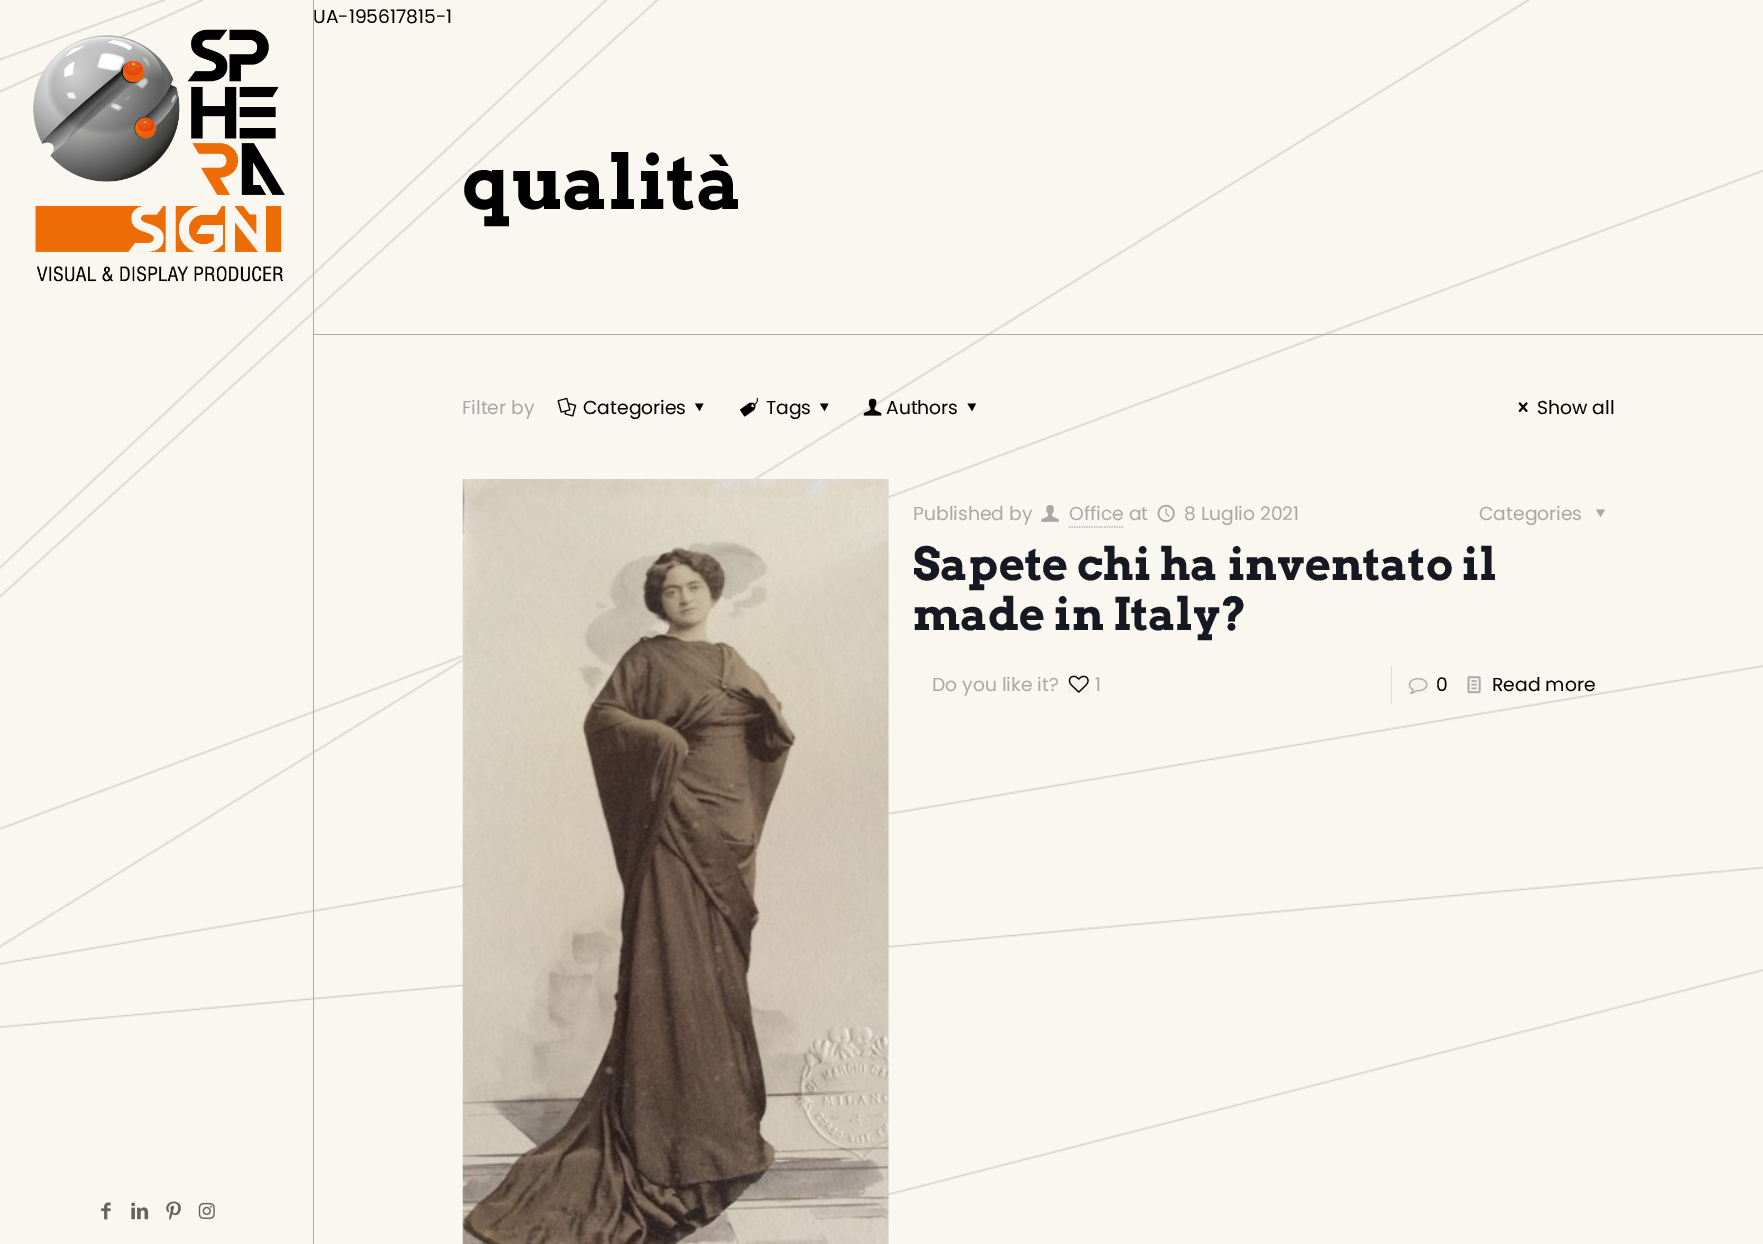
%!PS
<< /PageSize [1763 1244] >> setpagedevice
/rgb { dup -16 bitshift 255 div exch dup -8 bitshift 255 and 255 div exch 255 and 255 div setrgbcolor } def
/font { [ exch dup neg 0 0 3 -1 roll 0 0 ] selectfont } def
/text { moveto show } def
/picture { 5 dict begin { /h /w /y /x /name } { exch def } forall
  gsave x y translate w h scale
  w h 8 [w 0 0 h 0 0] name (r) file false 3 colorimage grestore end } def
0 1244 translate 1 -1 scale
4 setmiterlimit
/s1 { /Poppins-Regular 18.75 font 16#000000 rgb } def
/s2 { /Arvo-Bold 75 font 16#000000 rgb } def
/s3 { /Poppins-Regular 18.75 font 16#A8A8A8 rgb } def
/s4 { /Arvo-Bold 45 font 16#161922 rgb } def
16#F9F7EF rgb
0 0 1763 1244 rectfill
(pic1.raw) 0 0 1763 1196 picture
s1
(UA-195617815-1) 313 23 text
16#AEACA7 rgb
313 334 1450 1 rectfill
313 0 1 1244 rectfill
(pic2.raw) 33 29 252 253 picture
(pic3.raw) 101 1202 10 18 picture
(pic4.raw) 131 1202 18 18 picture
(pic5.raw) 166 1201 15 20 picture
(pic6.raw) 198 1202 17 17 picture
s2
(qualità) 462 209 text
s3
(Filter by) 462 414 text
(pic7.raw) 557 397 20 20 picture
s1
(Categories) 583 414 text
703.5 403.5 moveto 699.5 411 lineto 695 403.5 lineto closepath fill
(pic8.raw) 740 397 18 20 picture
(Tags) 766 414 text
828.5 403.5 moveto 824.5 411 lineto 820 403.5 lineto closepath fill
(pic9.raw) 863 398 19 18 picture
(Authors) 886 414 text
976 403.5 moveto 972 411 lineto 967.5 403.5 lineto closepath fill
(pic10.raw) 1518 402 10 10 picture
(Show all) 1537 414 text
(pic11.raw) 462 479 427 765 picture
s3
(Published by) 913 520 text
(pic12.raw) 1041 505 18 17 picture
(Office at) 1069 520 text
1.2 setlinewidth
[1.25 1.25] 0 setdash
1069 527 moveto 1124 527 lineto stroke
(pic13.raw) 1157 504 18 18 picture
(8 Luglio 2021) 1184 520 text
(Categories) 1479 520 text
1605 509.5 moveto 1600.5 517 lineto 1596 509.5 lineto closepath fill
s4
(Sapete chi ha inventato il) 913 580 text
(made in Italy?) 913 630 text
s3
(Do you like it?) 932 691 text
(pic14.raw) 1068 675 21 18 picture
(1) 1095 691 text
16#E0DFD7 rgb
1391 666 1 38 rectfill
(pic15.raw) 1408 678 20 16 picture
s1
(0) 1436 691 text
(pic16.raw) 1467 676 14 18 picture
(Read more) 1492 691 text
showpage
